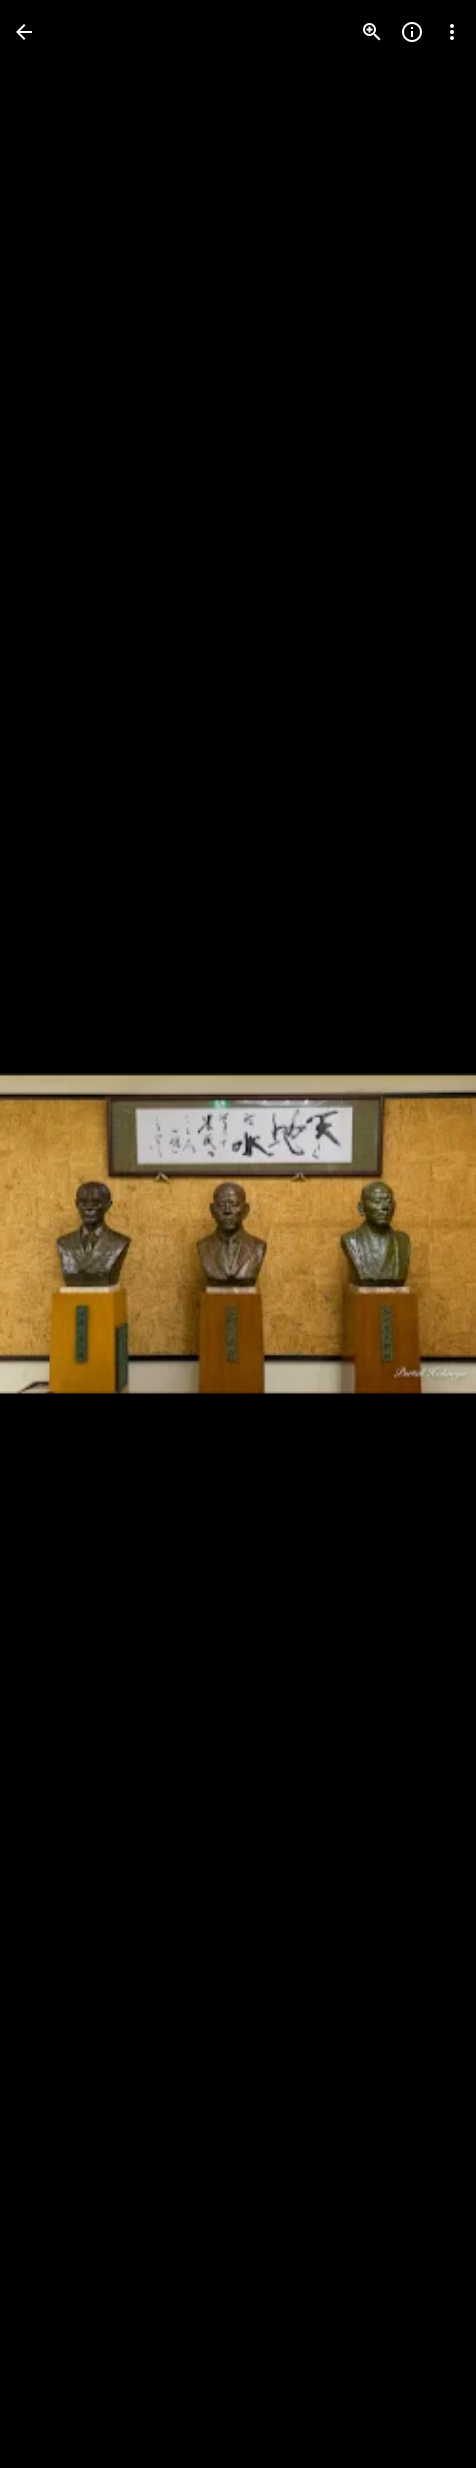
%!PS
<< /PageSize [476 2468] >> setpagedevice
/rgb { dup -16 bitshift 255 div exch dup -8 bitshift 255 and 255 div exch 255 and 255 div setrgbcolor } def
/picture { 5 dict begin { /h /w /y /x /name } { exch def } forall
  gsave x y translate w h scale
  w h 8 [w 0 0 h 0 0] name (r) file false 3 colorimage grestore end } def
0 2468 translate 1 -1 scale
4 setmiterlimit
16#000000 rgb
0 0 476 2468 rectfill
(pic1.raw) 16 24 16 16 picture
(pic2.raw) 363 23 18 18 picture
(pic3.raw) 402 22 20 20 picture
(pic4.raw) 450 24 4 16 picture
(pic5.raw) 0 1073 476 321 picture
showpage
